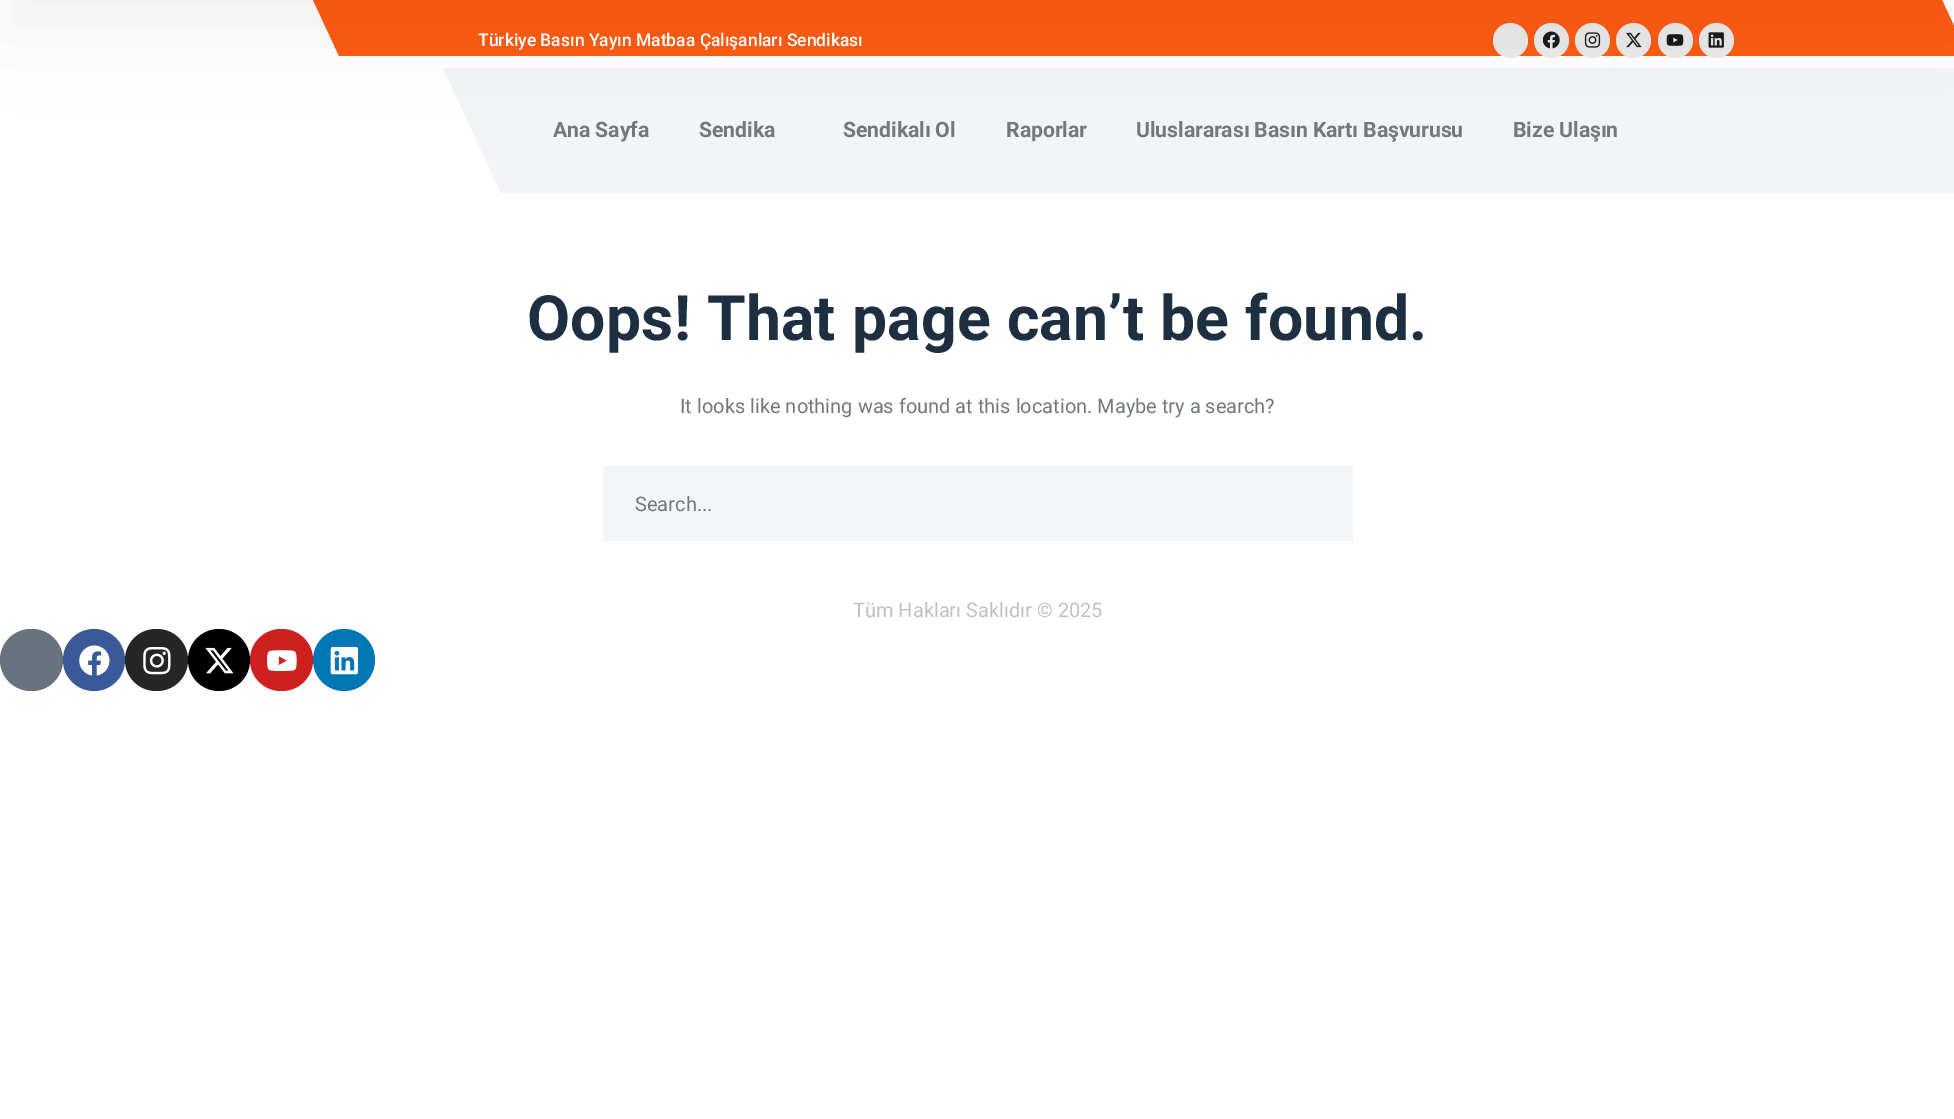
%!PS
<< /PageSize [1954 1119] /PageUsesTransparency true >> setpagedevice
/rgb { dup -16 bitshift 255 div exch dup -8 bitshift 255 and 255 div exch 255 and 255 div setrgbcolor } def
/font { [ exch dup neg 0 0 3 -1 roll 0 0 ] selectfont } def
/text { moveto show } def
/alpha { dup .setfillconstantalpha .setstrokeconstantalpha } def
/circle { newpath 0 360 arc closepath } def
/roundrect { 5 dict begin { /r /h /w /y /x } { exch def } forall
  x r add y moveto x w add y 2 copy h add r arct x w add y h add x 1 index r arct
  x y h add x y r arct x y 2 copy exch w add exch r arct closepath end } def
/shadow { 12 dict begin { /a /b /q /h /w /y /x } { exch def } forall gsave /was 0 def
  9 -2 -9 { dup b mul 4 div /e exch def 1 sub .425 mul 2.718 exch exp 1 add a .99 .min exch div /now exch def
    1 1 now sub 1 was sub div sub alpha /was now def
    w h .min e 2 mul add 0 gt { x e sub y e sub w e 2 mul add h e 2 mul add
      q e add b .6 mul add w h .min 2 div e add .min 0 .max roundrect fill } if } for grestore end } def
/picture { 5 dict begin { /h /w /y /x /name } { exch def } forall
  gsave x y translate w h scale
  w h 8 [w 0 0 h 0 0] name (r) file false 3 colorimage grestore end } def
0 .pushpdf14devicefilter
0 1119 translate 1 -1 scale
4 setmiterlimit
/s1 { /Roboto-Medium 17.5 font 16#FFFFFF rgb } def
/s2 { /Roboto-Regular 20 font 16#73787D rgb } def
/s3 { /Roboto-Regular 20 font 16#C1C1C1 rgb } def
16#FFFFFF rgb
0 0 1954 1119 rectfill
16#FF5B12 rgb
313 0 moveto 1942 0 lineto 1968 56 lineto 339 56 lineto closepath fill
16#EAEAEA rgb
1510.5 40.5 17.5 circle fill
1551.5 40.5 17.5 circle fill
(pic1.raw) 1543 31 17 18 picture
1592.5 40.5 17.5 circle fill
(pic2.raw) 1584 32 17 16 picture
1633.5 40.5 17.5 circle fill
(pic3.raw) 1626 32 16 16 picture
1675.5 40.5 17.5 circle fill
(pic4.raw) 1666 34 18 12 picture
1716.5 40.5 17.5 circle fill
(pic5.raw) 1708 32 16 16 picture
16#F2F4F8 rgb
443 68 moveto 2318 68 lineto 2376 193 lineto 501 193 lineto closepath fill
16#000000 rgb
0 -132 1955 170 0 44 0.05 shadow
s1
(Türkiye Basın Yayın Matbaa Çalışanları Sendikası) 478 46 text
/Roboto-Bold 21.25 font
16#73787D rgb
553 137 moveto -0.1 0 (Ana Sayfa) ashow
699 137 moveto -0.1 0 (Sendika) ashow
843 137 moveto -0.1 0 (Sendikalı Ol) ashow
1006 137 moveto -0.1 0 (Raporlar) ashow
1136 137 moveto -0.1 0 (Uluslararası Basın Kartı Başvurusu) ashow
1513 137 moveto -0.1 0 (Bize Ulaşın) ashow
/Roboto-Bold 62.5 font
16#1D2F41 rgb
527 340 moveto 0.25 0 (Oops! That page can’t be found.) ashow
s2
(It looks like nothing was found at this location. Maybe try a search?) 680 413 text
16#F4F5F8 rgb
603 466 750 75 rectfill
s2
(Search...) 635 511 text
s3
(Tüm Hakları Saklıdır © 2025) 853 617 text
16#69727D rgb
0 629 63 62 31 roundrect fill
16#3B5998 rgb
94 660 31 circle fill
(pic6.raw) 79 645 31 31 picture
16#262626 rgb
125 629 63 62 31 roundrect fill
(pic7.raw) 143 646 28 29 picture
16#000000 rgb
219 660 31 circle fill
(pic8.raw) 205 647 29 27 picture
16#CD201F rgb
250 629 63 62 31 roundrect fill
(pic9.raw) 267 650 30 22 picture
16#0077B5 rgb
344 660 31 circle fill
(pic10.raw) 330 646 29 29 picture
.poppdf14devicefilter showpage
